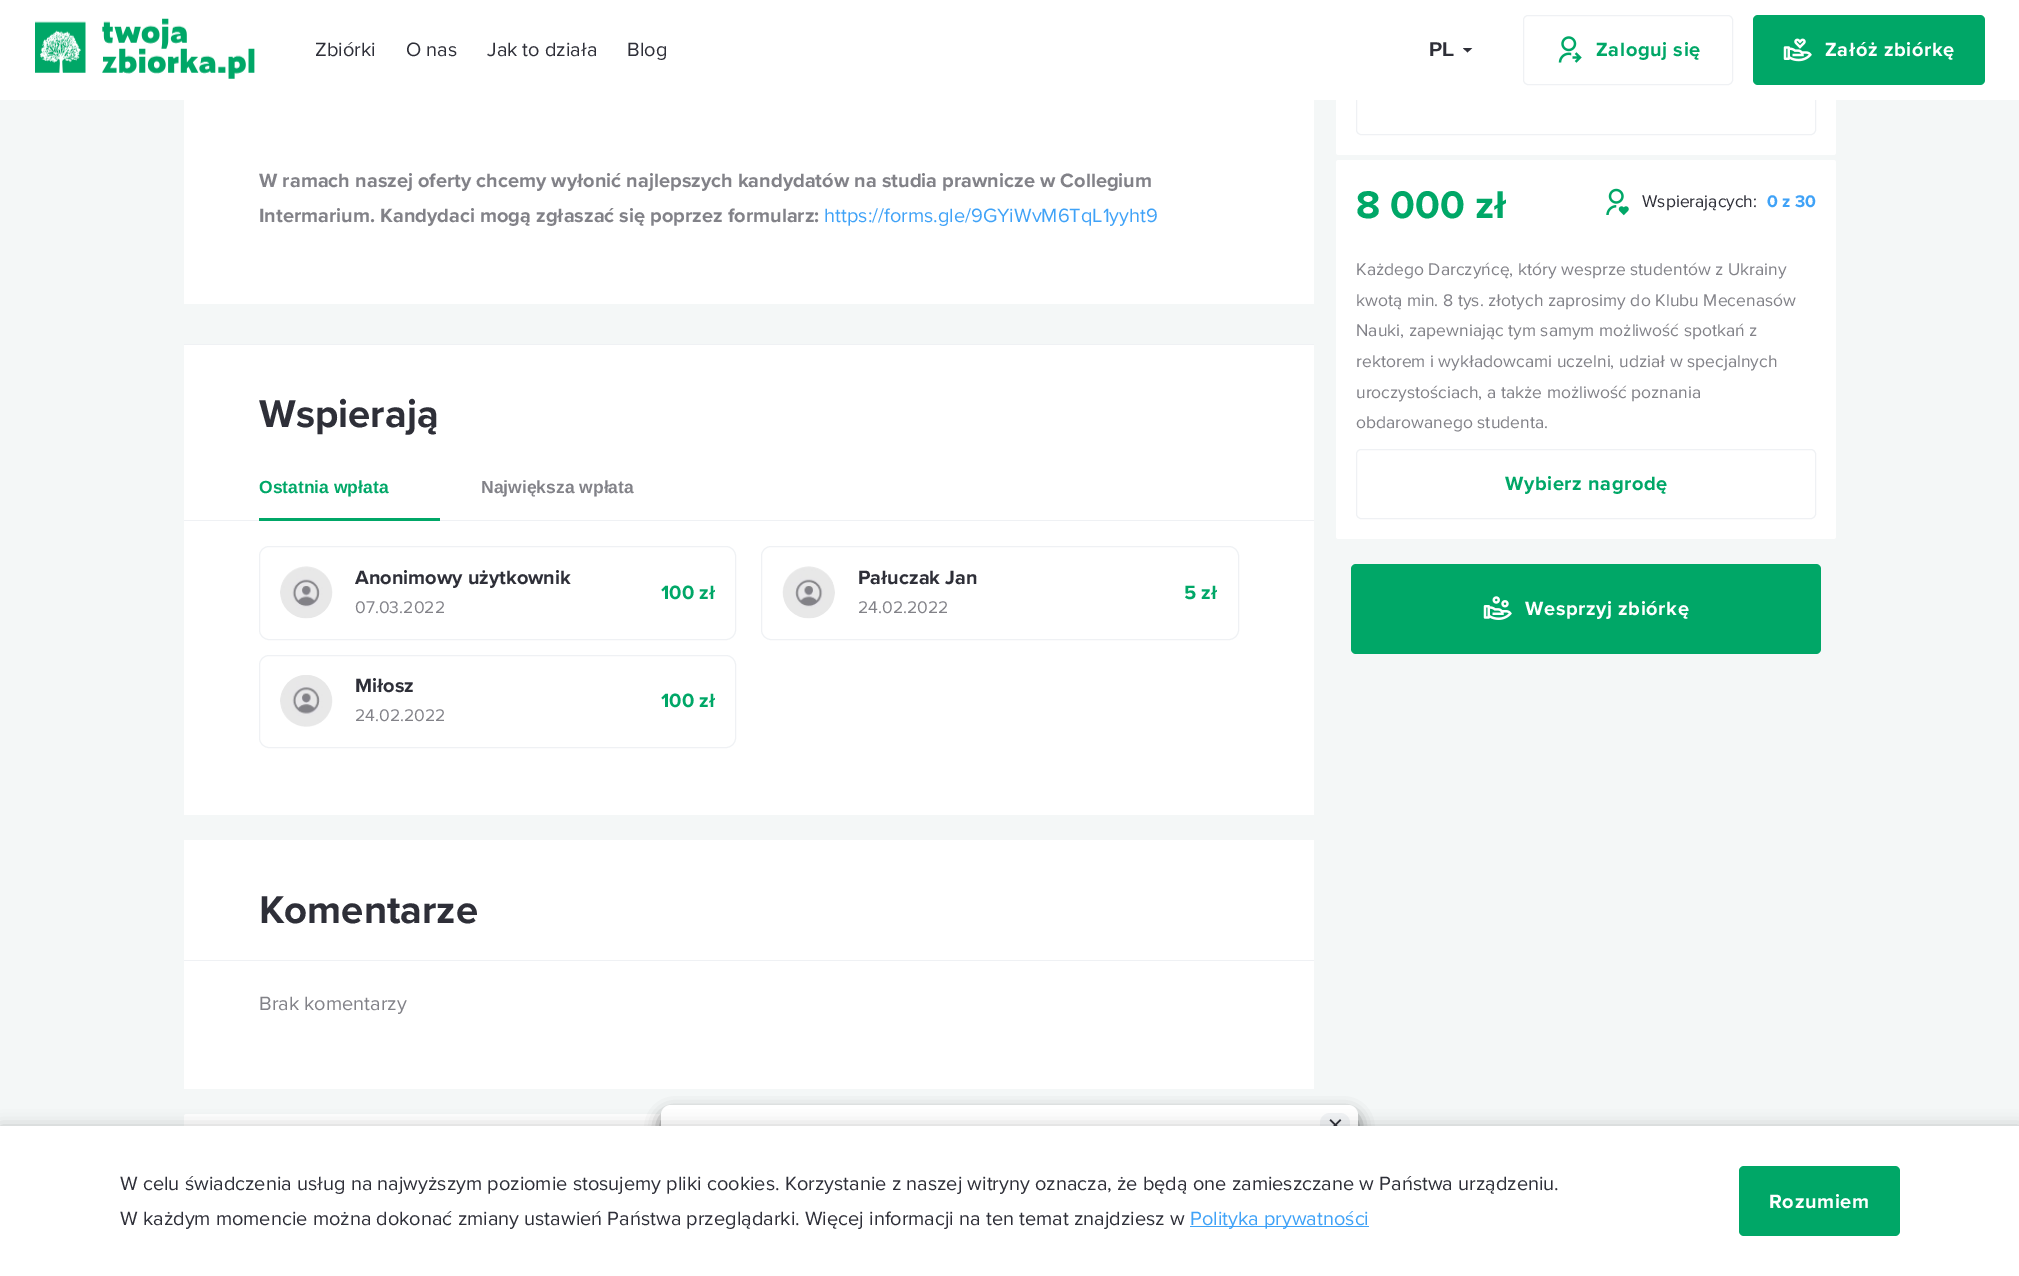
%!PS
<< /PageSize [2019 1276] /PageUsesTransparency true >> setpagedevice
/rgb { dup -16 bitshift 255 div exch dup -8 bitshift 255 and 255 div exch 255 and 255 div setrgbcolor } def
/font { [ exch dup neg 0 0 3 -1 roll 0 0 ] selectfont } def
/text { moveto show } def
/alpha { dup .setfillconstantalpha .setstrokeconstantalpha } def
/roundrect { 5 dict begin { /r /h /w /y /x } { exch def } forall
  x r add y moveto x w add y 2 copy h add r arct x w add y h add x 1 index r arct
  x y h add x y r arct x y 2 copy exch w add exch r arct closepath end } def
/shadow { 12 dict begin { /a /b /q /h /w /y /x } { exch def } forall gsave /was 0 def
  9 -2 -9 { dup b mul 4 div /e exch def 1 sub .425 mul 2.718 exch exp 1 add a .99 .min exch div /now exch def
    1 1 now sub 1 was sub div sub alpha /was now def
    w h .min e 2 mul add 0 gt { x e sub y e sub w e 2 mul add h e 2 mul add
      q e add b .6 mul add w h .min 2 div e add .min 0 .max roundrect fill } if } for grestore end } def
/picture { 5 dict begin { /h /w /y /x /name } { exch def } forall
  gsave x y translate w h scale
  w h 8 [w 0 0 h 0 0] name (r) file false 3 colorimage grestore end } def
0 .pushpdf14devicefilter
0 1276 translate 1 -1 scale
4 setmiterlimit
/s1 { /ProximaNova-Regular 20 font 16#2E2F38 rgb } def
/s2 { /LiberationSans-Bold 20 font 16#2E2F38 rgb } def
/s3 { /ProximaNova-Bold 20 font 16#828288 rgb } def
/s4 { /ProximaNova-Regular 20 font 16#3FA2F7 rgb } def
/s5 { /ProximaNova-Bold 40 font 16#2E2F38 rgb } def
/s6 { /LiberationSans-Bold 17.5 font 16#00A767 rgb } def
/s7 { /LiberationSans-Bold 17.5 font 16#828288 rgb } def
/s8 { /ProximaNova-Bold 20 font 16#2E2F38 rgb } def
/s9 { /ProximaNova-Regular 17.5 font 16#828288 rgb } def
/s10 { /ProximaNova-Bold 20 font 16#00A767 rgb } def
/s11 { /ProximaNova-Regular 20 font 16#828288 rgb } def
/s12 { /ProximaNova-Bold 40 font 16#00A767 rgb } def
/s13 { /ProximaNova-Regular 17.5 font 16#2E2F38 rgb } def
/s14 { /ProximaNova-Bold 17.5 font 16#3FA2F7 rgb } def
16#F4F7F7 rgb
0 0 2019 1276 rectfill
16#FFFFFF rgb
1336 -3 500 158 2.5 roundrect fill
16#EFF1F4 rgb
1356.5 65.5 459 69 4.5 roundrect stroke
16#FFFFFF rgb
0 0 2019 100 rectfill
(pic1.raw) 35 18 220 61 picture
s1
(Zbiórki) 315 56 text
(O nas) 406 56 text
(Jak to działa) 487 56 text
(Blog) 627 56 text
s2
(PL) 1429 56 text
gsave
1463 48 10 5 rectclip
1467.5 52.5 moveto 1462.5 47.5 lineto 1472.5 47.5 lineto closepath fill
grestore
16#EFF1F4 rgb
1523.5 15.5 209 69 4.5 roundrect stroke
(pic2.raw) 1558 36 24 27 picture
/ProximaNova-Bold 20 font
16#00A767 rgb
1596 56 moveto 0.6 0 (Zaloguj się) ashow
1753 15 232 70 5 roundrect fill
(pic3.raw) 1783 38 29 24 picture
16#FFFFFF rgb
1825 56 moveto 0.6 0 (Załóż zbiórkę) ashow
184 100 1130 204 rectfill
s3
(W ramach naszej oferty chcemy wyłonić najlepszych kandydatów na studia prawnicze w Collegium) 259 187 text
(Intermarium. Kandydaci mogą zgłaszać się poprzez formularz:) 259 222 text
s4
(https://forms.gle/9GYiWvM6TqL1yyht9) 824 222 text
16#FFFFFF rgb
184 345 1130 470 rectfill
16#EFF1F4 rgb
184 344 1130 1 rectfill
184 520 1130 1 rectfill
s5
(Wspierają) 259 427 text
s6
(Ostatnia wpłata) 259 493 text
259 518 181 3 rectfill
s7
(Największa wpłata) 481 493 text
16#EFF1F4 rgb
259.5 546.5 476 93 9.5 roundrect stroke
(pic4.raw) 280 566 53 53 picture
s8
(Anonimowy użytkownik) 355 584 text
s9
(07.03.2022) 355 613 text
s10
(100 zł) 661 599 text
16#EFF1F4 rgb
761.5 546.5 477 93 9.5 roundrect stroke
(pic5.raw) 782 566 53 53 picture
s8
(Pałuczak Jan) 858 584 text
s9
(24.02.2022) 858 613 text
s10
(5 zł) 1184 599 text
16#EFF1F4 rgb
259.5 655.5 476 92 9.5 roundrect stroke
(pic6.raw) 280 675 53 52 picture
s8
(Miłosz) 355 692 text
s9
(24.02.2022) 355 721 text
s10
(100 zł) 661 707 text
16#FFFFFF rgb
184 840 1130 249 rectfill
16#EFF1F4 rgb
184 960 1130 1 rectfill
s5
(Komentarze) 259 923 text
s11
(Brak komentarzy) 259 1010 text
16#FFFFFF rgb
184 1114 1130 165 2.5 roundrect fill
1336 160 500 379 2.5 roundrect fill
s12
(8 000 zł) 1356 218 text
(pic7.raw) 1606 188 23 28 picture
s13
(Wspierających:) 1642 207 text
s14
(0 z 30) 1767 207 text
s9
(Każdego Darczyńcę, który wesprze studentów z Ukrainy) 1356 275 text
(kwotą min. 8 tys. złotych zaprosimy do Klubu Mecenasów) 1356 306 text
(Nauki, zapewniając tym samym możliwość spotkań z) 1356 336 text
(rektorem i wykładowcami uczelni, udział w specjalnych) 1356 367 text
(uroczystościach, a także możliwość poznania) 1356 398 text
(obdarowanego studenta.) 1356 428 text
16#EFF1F4 rgb
1356.5 449.5 459 69 4.5 roundrect stroke
/ProximaNova-Bold 20 font
16#00A767 rgb
1505 490 moveto 0.6 0 (Wybierz nagrodę) ashow
1351 564 470 90 5 roundrect fill
(pic8.raw) 1483 596 29 24 picture
16#FFFFFF rgb
1525 615 moveto 0.6 0 (Wesprzyj zbiórkę) ashow
16#000000 rgb
661 1113 697 121 10 7.5 0.6 shadow
16#FFFFFF rgb
661 1105 697 121 10 roundrect fill
16#F2F4F6 rgb
1320 1113 30 30 10 roundrect fill
(pic9.raw) 1329 1119 13 7 picture
16#000000 rgb
0 1126 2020 150 0 7.5 0.2 shadow
16#FFFFFF rgb
0 1126 2019 150 rectfill
s1
(W celu świadczenia usług na najwyższym poziomie stosujemy pliki cookies. Korzystanie z naszej witryny oznacza, że będą one zamieszczane w Państwa urządzeniu.) 120 1190 text
(W każdym momencie można dokonać zmiany ustawień Państwa przeglądarki. Więcej informacji na ten temat znajdziesz w) 120 1225 text
16#3FA2F7 rgb
1190 1226 179 1 rectfill
(Polityka prywatności) 1190 1225 text
16#00A767 rgb
1739 1166 161 70 5 roundrect fill
/ProximaNova-Bold 20 font
16#FFFFFF rgb
1769 1208 moveto 0.6 0 (Rozumiem) ashow
.poppdf14devicefilter showpage
